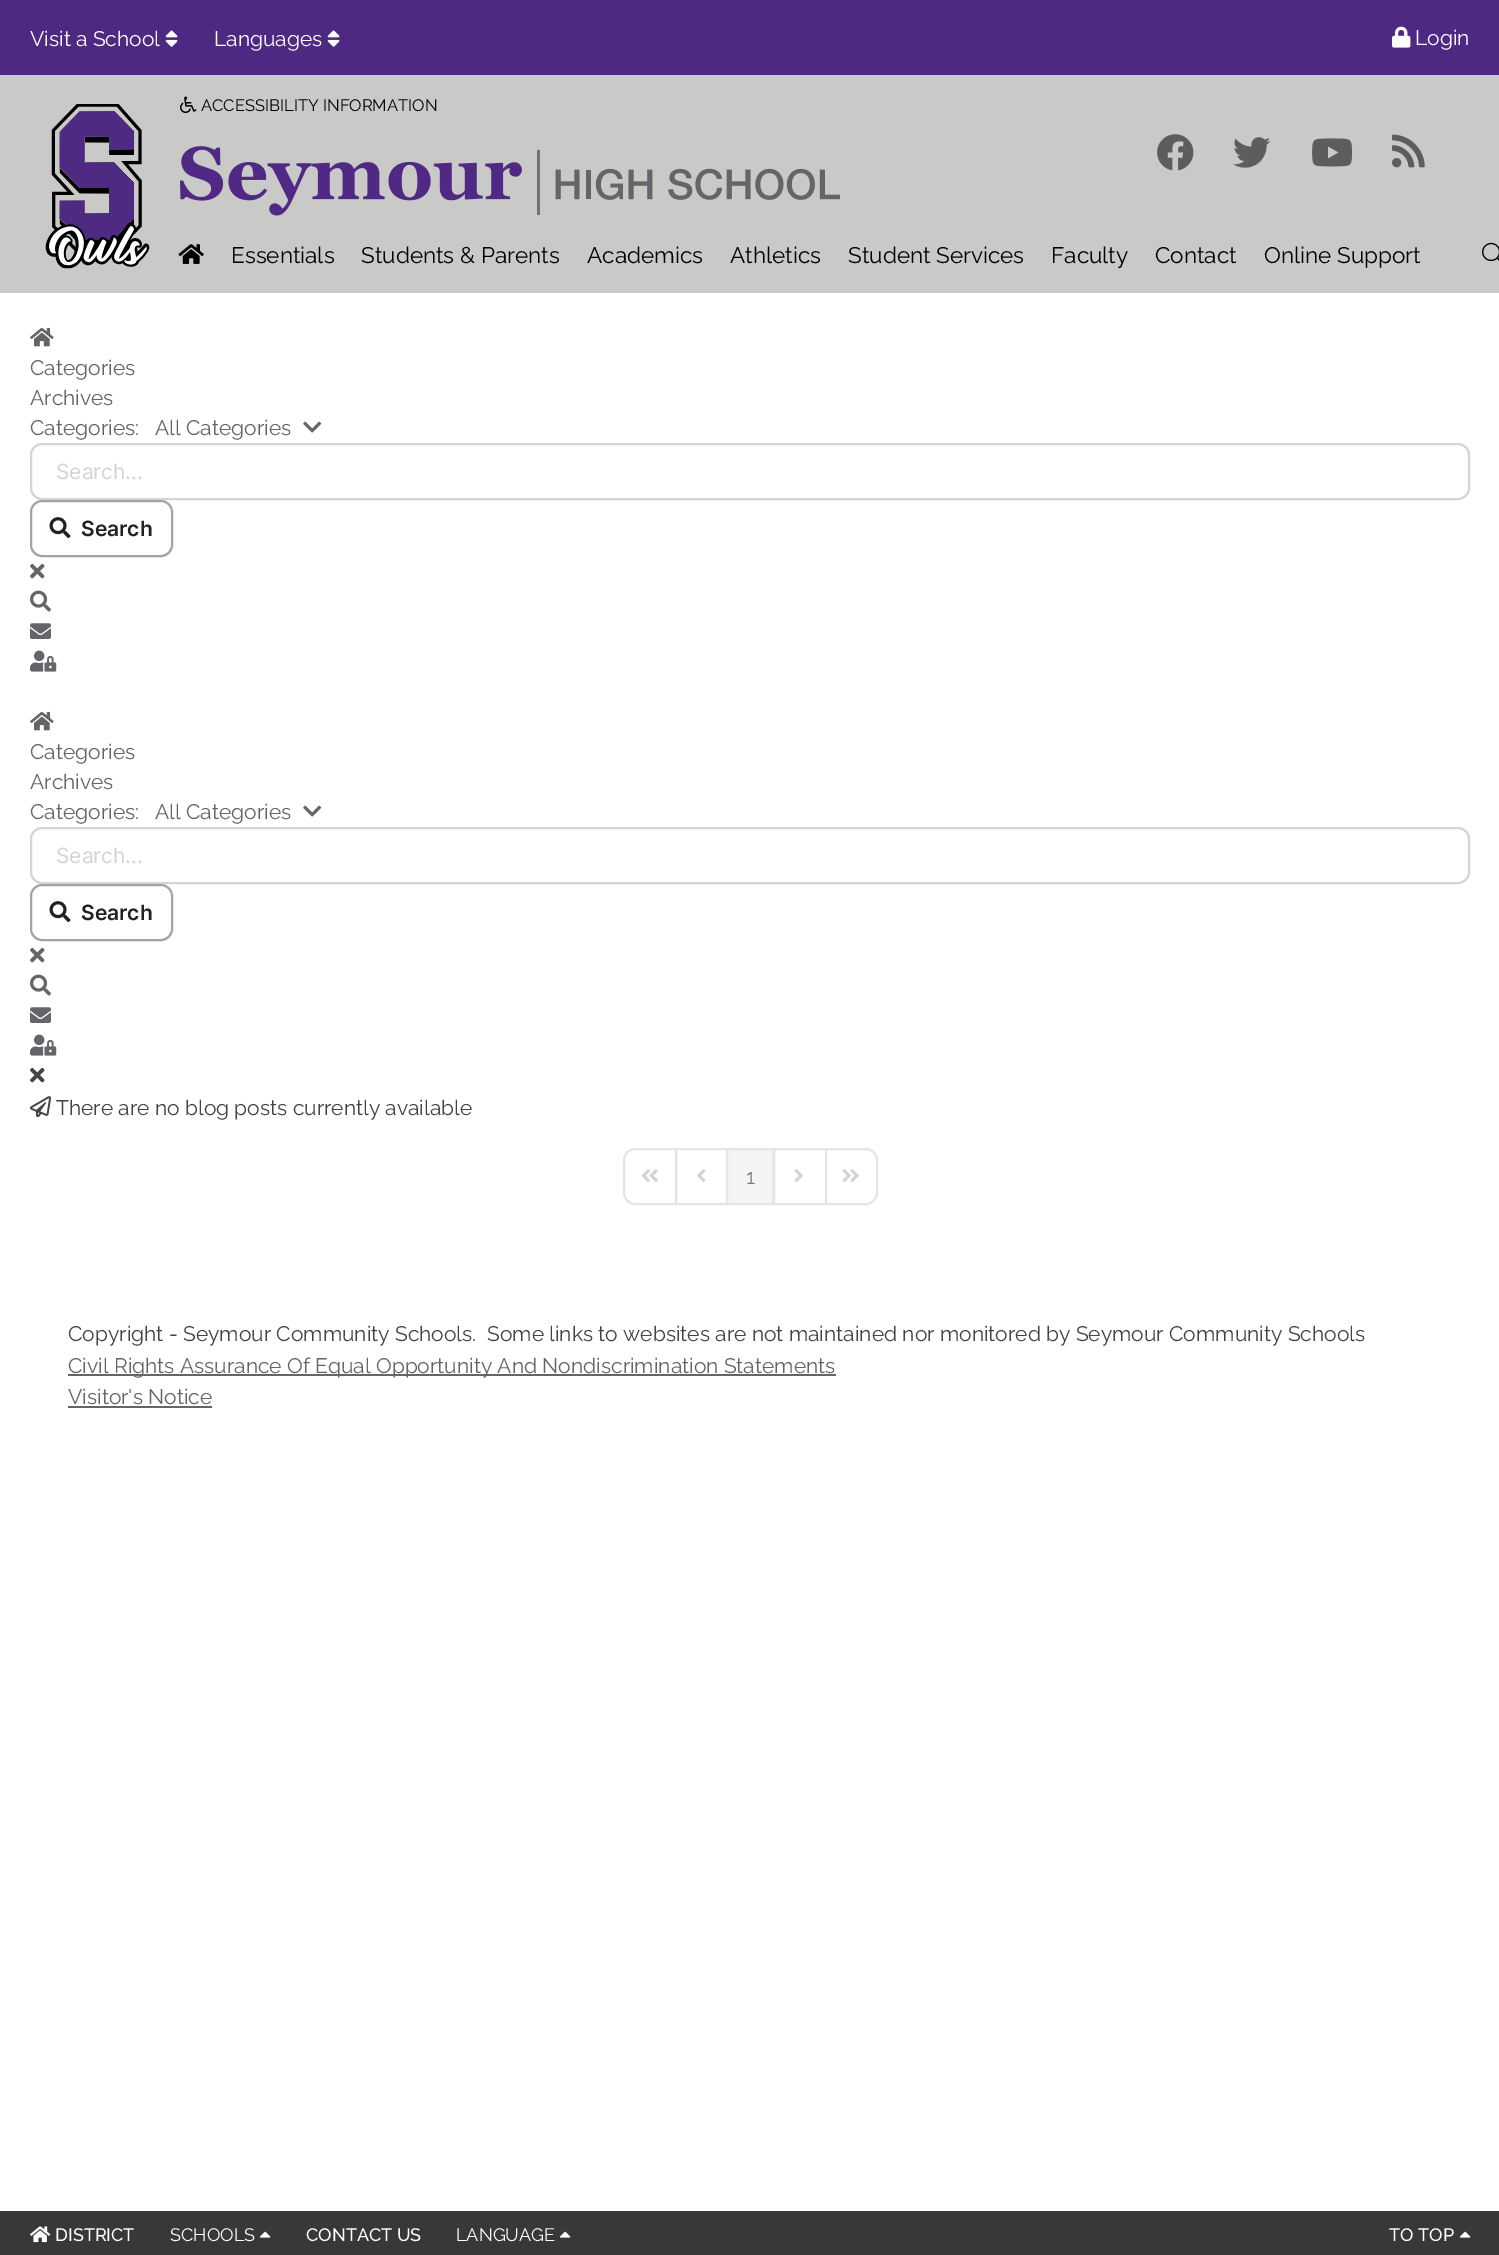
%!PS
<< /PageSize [1499 2255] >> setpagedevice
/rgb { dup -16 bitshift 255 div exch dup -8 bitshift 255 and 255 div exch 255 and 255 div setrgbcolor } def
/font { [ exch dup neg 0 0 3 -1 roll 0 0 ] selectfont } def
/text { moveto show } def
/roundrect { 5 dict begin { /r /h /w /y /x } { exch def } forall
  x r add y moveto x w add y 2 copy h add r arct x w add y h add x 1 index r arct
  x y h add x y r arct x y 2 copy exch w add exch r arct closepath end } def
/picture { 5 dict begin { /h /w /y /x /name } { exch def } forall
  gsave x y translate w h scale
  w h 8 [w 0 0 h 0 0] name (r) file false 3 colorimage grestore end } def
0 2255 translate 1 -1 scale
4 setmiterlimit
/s1 { /Raleway-Regular 21 font 16#FFFFFF rgb } def
/s2 { /Raleway-Regular 16.5 font 16#000000 rgb } def
/s3 { /Raleway-Regular 22.5 font 16#000000 rgb } def
/s4 { /Raleway-Regular 21 font 16#636569 rgb } def
/s5 { /Inter-Regular 21 font 16#D4D4D4 rgb } def
/s6 { /Inter-SemiBold 21 font 16#222222 rgb } def
/s7 { /Raleway-Regular 21 font 16#434343 rgb } def
/s8 { /Raleway-Regular 21 font 16#777777 rgb } def
/s9 { /Raleway-Medium 18 font 16#FFFFFF rgb } def
/s10 { /Raleway-Regular 18 font 16#FFFFFF rgb } def
16#FFFFFF rgb
0 0 1499 2255 rectfill
16#4E2983 rgb
0 0 1499 75 rectfill
s1
(Visit a School) 30 46 text
(pic1.raw) 165 30 13 17 picture
(Languages) 214 46 text
(pic1.raw) 327 30 13 17 picture
(pic2.raw) 1392 26 19 22 picture
(Login) 1415 45 text
16#C9C9C7 rgb
0 75 1499 218 rectfill
(pic3.raw) 180 96 17 18 picture
s2
(ACCESSIBILITY INFORMATION) 201 111 text
(pic4.raw) 1157 134 37 37 picture
(pic5.raw) 1233 137 38 31 picture
(pic6.raw) 1312 138 41 29 picture
(pic7.raw) 1392 134 33 34 picture
(pic8.raw) 45 104 105 165 picture
(pic9.raw) 180 146 660 70 picture
(pic10.raw) 1482 242 17 20 picture
(pic11.raw) 178 244 26 20 picture
s3
(Essentials) 231 263 text
(Students & Parents) 361 263 text
(Academics) 587 263 text
(Athletics) 730 263 text
(Student Services) 848 263 text
(Faculty) 1051 263 text
(Contact) 1155 263 text
(Online Support) 1264 263 text
(pic12.raw) 30 327 24 20 picture
s4
(Categories) 30 375 text
(Archives) 30 405 text
(Categories:) 30 435 text
(All Categories) 155 435 text
(pic13.raw) 303 421 19 12 picture
16#D4D4D4 rgb
2 setlinewidth
31 444 1438 55 11 roundrect stroke
s5
(Search...) 56 479 text
16#A3A3A3 rgb
31 501 141 55 11 roundrect stroke
(pic14.raw) 49 517 22 22 picture
s6
(Search) 81 536 text
(pic15.raw) 30 563 15 16 picture
(pic16.raw) 30 590 21 22 picture
(pic17.raw) 30 623 21 16 picture
(pic18.raw) 30 650 27 22 picture
(pic12.raw) 30 711 24 20 picture
s4
(Categories) 30 759 text
(Archives) 30 789 text
(Categories:) 30 819 text
(All Categories) 155 819 text
(pic13.raw) 303 805 19 12 picture
16#D4D4D4 rgb
31 828 1438 55 11 roundrect stroke
s5
(Search...) 56 863 text
16#A3A3A3 rgb
31 885 141 55 11 roundrect stroke
(pic14.raw) 49 901 22 22 picture
s6
(Search) 81 920 text
(pic15.raw) 30 947 15 16 picture
(pic16.raw) 30 974 21 22 picture
(pic17.raw) 30 1007 21 16 picture
(pic18.raw) 30 1034 27 22 picture
(pic19.raw) 30 1067 15 16 picture
(pic20.raw) 30 1096 21 22 picture
s7
(There are no blog posts currently available) 56 1115 text
16#E5E5E5 rgb
635 1149 moveto 676 1149 lineto 676 1204 lineto 635 1204 lineto 629 1204 624 1199 624 1193 curveto 624 1160 lineto 624 1154 629 1149 635 1149 curveto closepath stroke
(pic21.raw) 641 1169 17 13 picture
676 1149 51 55 rectstroke
(pic22.raw) 697 1169 9 14 picture
16#F4F4F4 rgb
727 1149 moveto 773 1149 lineto 773 1204 lineto 727 1204 lineto closepath gsave fill grestore
16#E5E5E5 rgb
stroke
s8
(1) 746 1184 text
16#E5E5E5 rgb
774 1149 52 55 rectstroke
(pic23.raw) 794 1169 9 14 picture
16#FFFFFF rgb
826 1149 moveto 866 1149 lineto 872 1149 877 1154 877 1160 curveto 877 1193 lineto 877 1199 872 1204 866 1204 curveto 826 1204 lineto closepath gsave fill grestore
16#E5E5E5 rgb
stroke
(pic24.raw) 842 1169 17 14 picture
s7
(Copyright - Seymour Community Schools.  Some links to websites are not maintained nor monitored by Seymour Community Schools) 68 1341 text
16#636569 rgb
68 1374 768 2 rectfill
(Civil Rights Assurance Of Equal Opportunity And Nondiscrimination Statements) 68 1373 text
(Visitor's Notice) 68 1404 text
68 1406 144 2 rectfill
16#383838 rgb
0 2211 1499 44 rectfill
(pic25.raw) 30 2226 21 17 picture
s9
(DISTRICT) 55 2241 text
s10
(SCHOOLS) 170 2241 text
(pic26.raw) 259 2231 12 7 picture
s9
(CONTACT US) 306 2241 text
s10
(LANGUAGE) 456 2241 text
(pic26.raw) 559 2231 12 7 picture
s9
(TO TOP) 1389 2241 text
(pic26.raw) 1459 2231 12 7 picture
showpage
